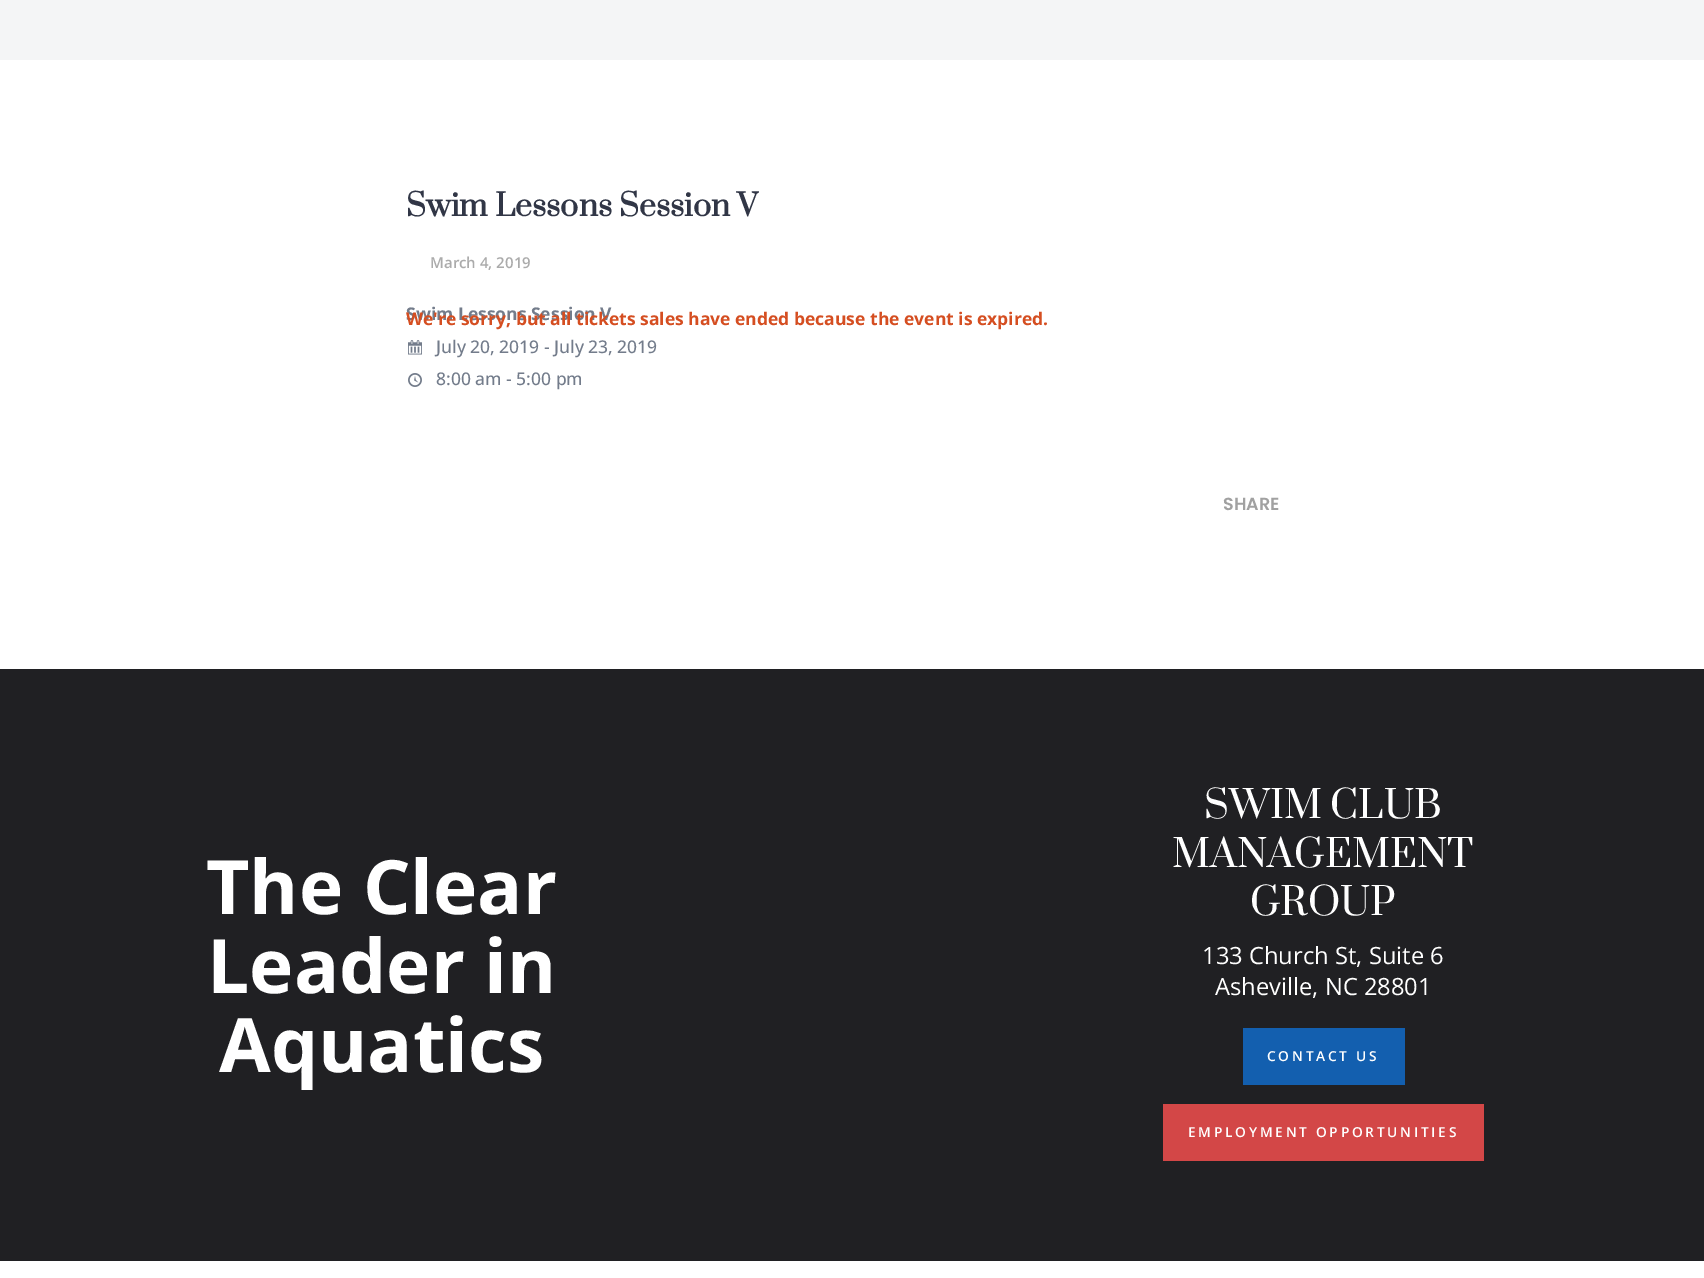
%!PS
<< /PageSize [1704 1278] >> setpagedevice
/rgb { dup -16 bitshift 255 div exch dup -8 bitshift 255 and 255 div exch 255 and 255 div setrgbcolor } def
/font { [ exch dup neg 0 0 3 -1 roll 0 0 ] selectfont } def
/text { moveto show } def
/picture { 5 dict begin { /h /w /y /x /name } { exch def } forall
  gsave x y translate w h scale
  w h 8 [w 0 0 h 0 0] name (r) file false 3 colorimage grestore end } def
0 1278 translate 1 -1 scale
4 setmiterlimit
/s1 { /Prata-Bold 30 font 16#313646 rgb } def
/s2 { /OpenSans-SemiBold 15 font 16#ABABAB rgb } def
/s3 { /OpenSans-Bold 17.5 font 16#737C8B rgb } def
/s4 { /OpenSans-Medium 17.5 font 16#737C8B rgb } def
/s5 { /OpenSans-Bold 17.5 font 16#D54E21 rgb } def
/s6 { /Poppins-SemiBold 17.5 font 16#A1A1A1 rgb } def
/s7 { /OpenSans-Bold 75 font 16#FFFFFF rgb } def
/s8 { /Prata-Regular 37.5 font 16#FFFFFF rgb } def
/s9 { /OpenSans-Regular 23.75 font 16#FFFFFF rgb } def
16#FFFFFF rgb
0 0 1704 1278 rectfill
16#F4F5F6 rgb
0 0 1704 60 rectfill
s1
(Swim Lessons Session V) 406 216 text
s2
(March 4, 2019) 430 268 text
s3
(Swim Lessons Session V) 406 320 text
(pic1.raw) 408 340 14 15 picture
s4
(July 20, 2019 - July 23, 2019) 436 353 text
(pic2.raw) 408 373 14 14 picture
(8:00 am - 5:00 pm) 436 385 text
s5
(We're sorry, but all tickets sales have ended because the event is expired.) 406 325 text
s6
(SHARE) 1223 510 text
16#202023 rgb
0 669 1704 592 rectfill
s7
(The Clear) 206 914 text
(Leader in) 207 993 text
(Aquatics) 219 1072 text
s8
(SWIM CLUB) 1204 818 text
(MANAGEMENT) 1172 867 text
(GROUP) 1250 915 text
s9
(133 Church St, Suite 6) 1202 964 text
(Asheville, NC 28801) 1215 995 text
16#135FAF rgb
1243 1028 162 57 rectfill
/OpenSans-SemiBold 13.75 font
16#FFFFFF rgb
1267 1061 moveto 2.75 0 (CONTACT US) ashow
16#D34747 rgb
1163 1104 321 57 rectfill
16#FFFFFF rgb
1188 1137 moveto 2.75 0 (EMPLOYMENT OPPORTUNITIES) ashow
showpage
